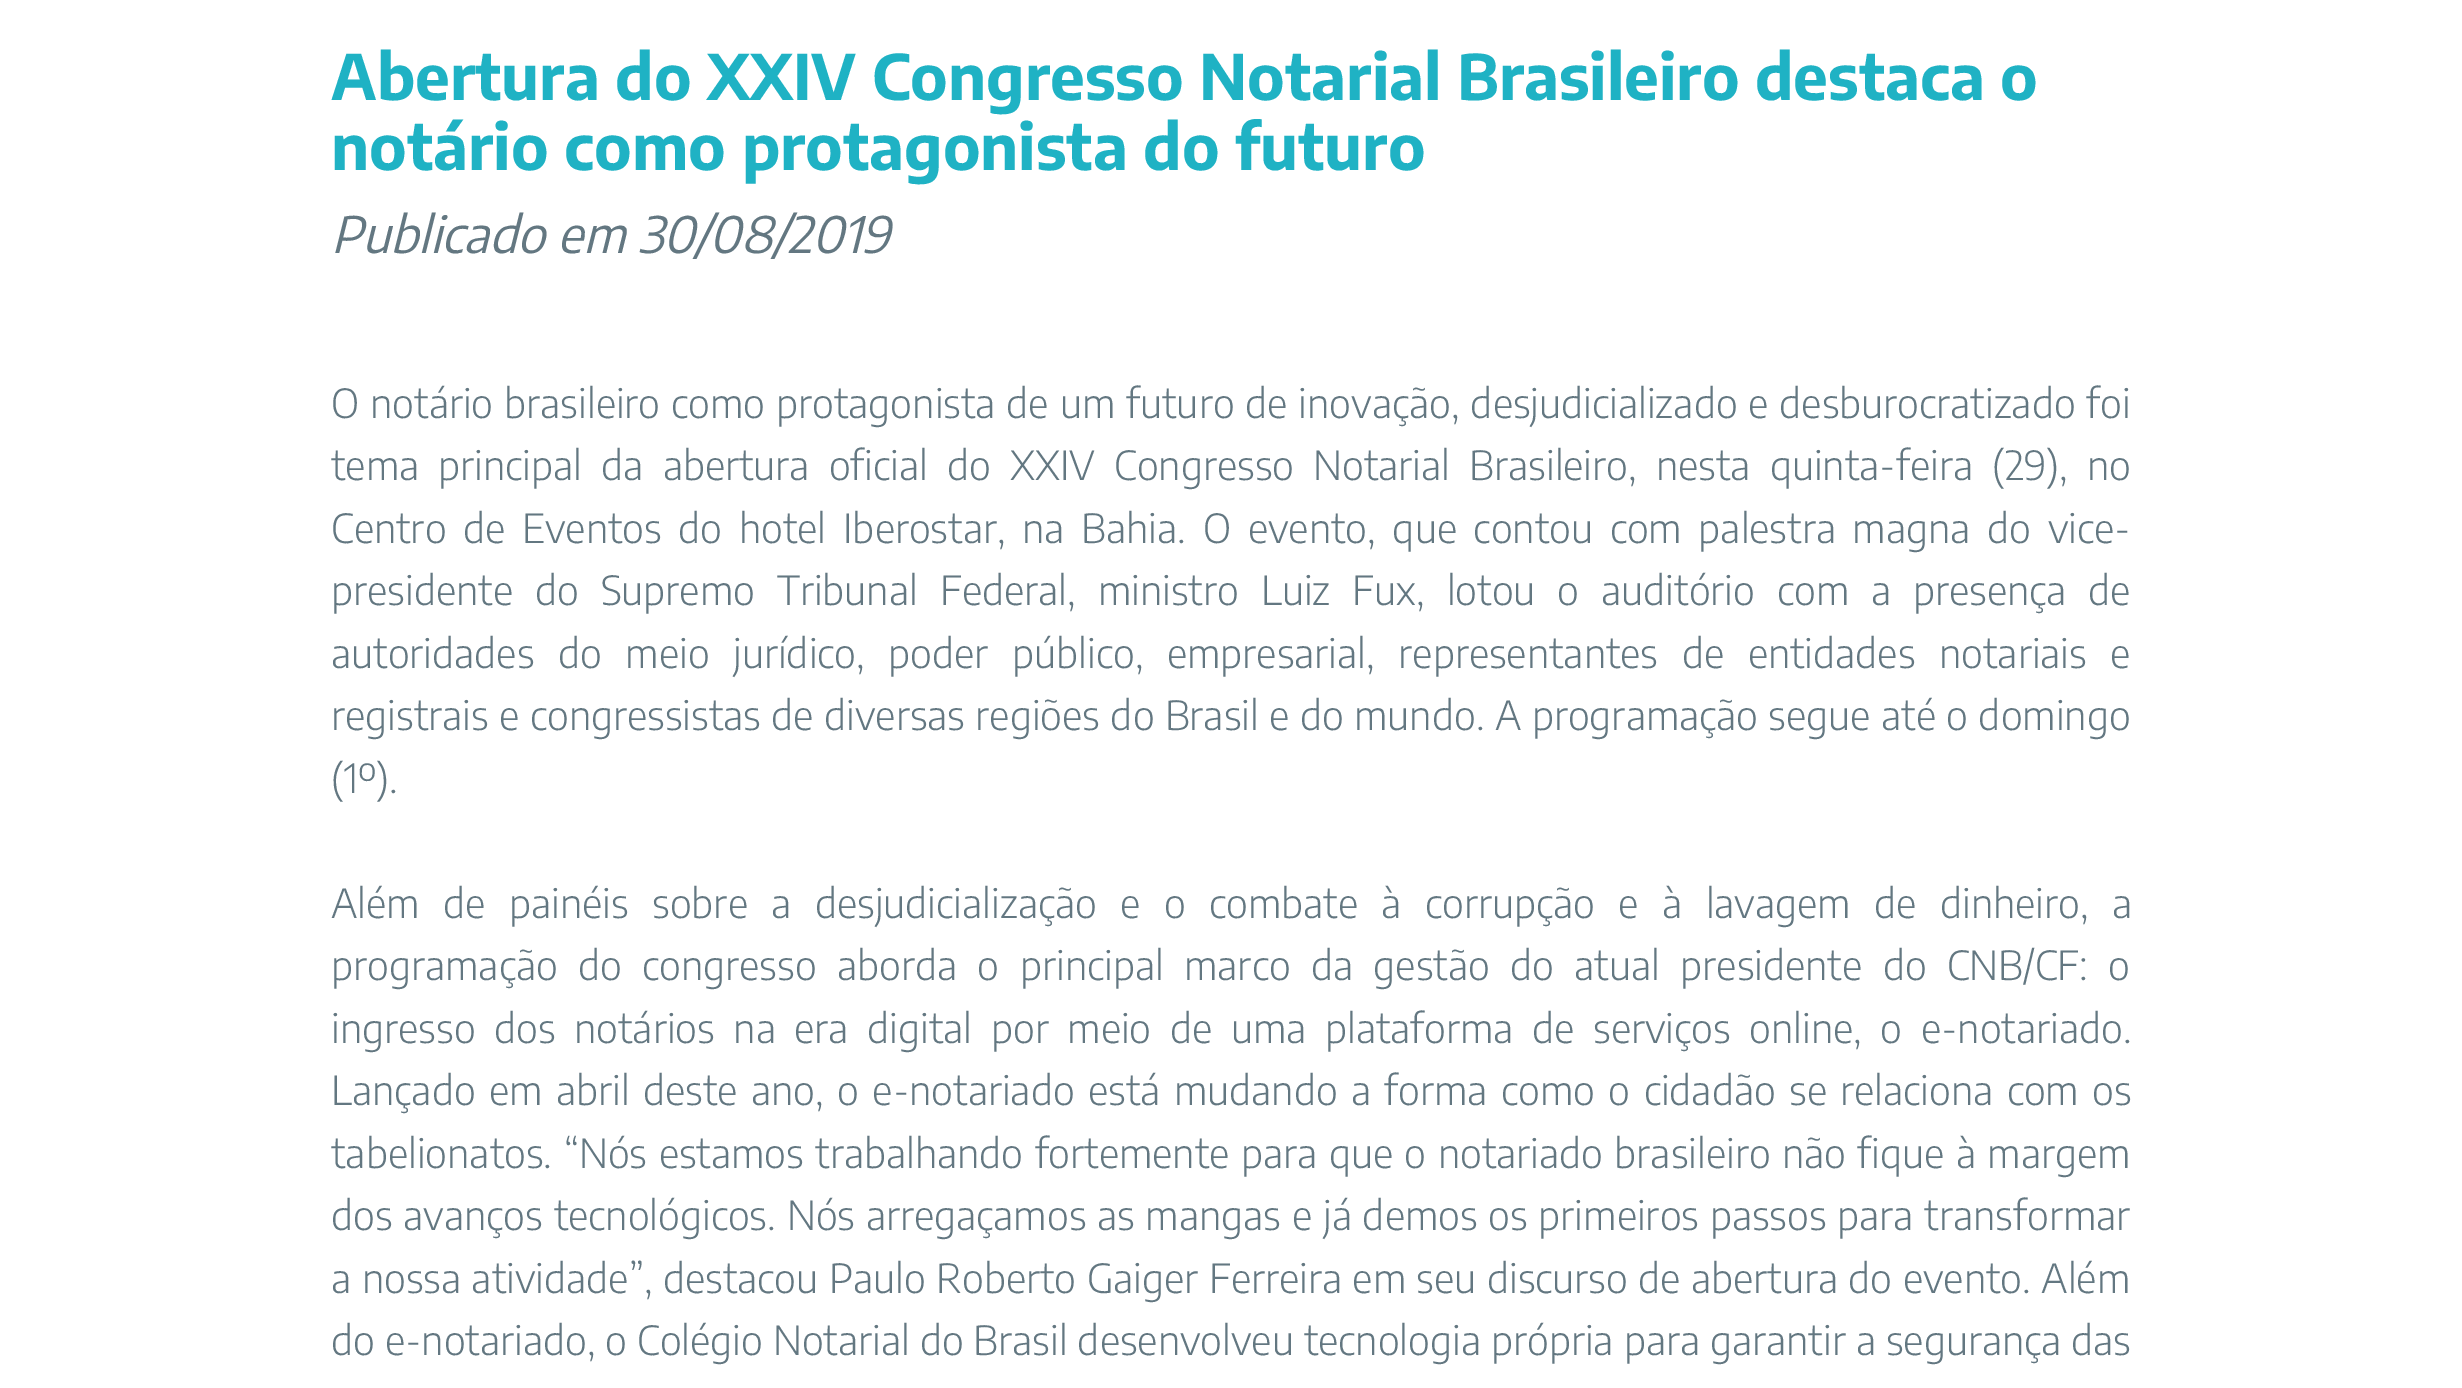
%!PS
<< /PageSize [2462 1388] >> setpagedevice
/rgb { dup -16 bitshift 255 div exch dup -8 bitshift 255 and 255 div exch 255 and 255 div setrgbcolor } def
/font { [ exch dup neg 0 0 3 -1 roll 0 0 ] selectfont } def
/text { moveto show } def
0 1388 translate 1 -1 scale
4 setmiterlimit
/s1 { /EncodeSansCondensed-Bold 62.5 font 16#1FB2C4 rgb } def
/s2 { /EncodeSansCondensed-Italic 50 font 16#637781 rgb } def
/s3 { /EncodeSansCondensed-Light 40 font 16#637781 rgb } def
16#FFFFFF rgb
0 0 2462 1388 rectfill
s1
(Abertura do XXIV Congresso Notarial Brasileiro destaca o) 331 100 text
(notário como protagonista do futuro) 331 170 text
s2
(Publicado em 30/08/2019) 331 253 text
/EncodeSansCondensed-Light 40 font
331 418 moveto 1.25 0 32 (O notário brasileiro como protagonista de um futuro de inovação, desjudicializado e desburocratizado foi) widthshow
331 480 moveto 9.4 0 32 (tema principal da abertura oficial do XXIV Congresso Notarial Brasileiro, nesta quinta-feira \(29\), no) widthshow
331 543 moveto 7 0 32 (Centro de Eventos do hotel Iberostar, na Bahia. O evento, que contou com palestra magna do vice-) widthshow
331 605 moveto 12.25 0 32 (presidente do Supremo Tribunal Federal, ministro Luiz Fux, lotou o auditório com a presença de) widthshow
331 668 moveto 13.9 0 32 (autoridades do meio jurídico, poder público, empresarial, representantes de entidades notariais e) widthshow
331 730 moveto 0.75 0 32 (registrais e congressistas de diversas regiões do Brasil e do mundo. A programação segue até o domingo) widthshow
(\(1º\).) 331 793 text
331 918 moveto 13.75 0 32 (Além de painéis sobre a desjudicialização e o combate à corrupção e à lavagem de dinheiro, a) widthshow
331 980 moveto 10.75 0 32 (programação do congresso aborda o principal marco da gestão do atual presidente do CNB/CF: o) widthshow
331 1043 moveto 8.9 0 32 (ingresso dos notários na era digital por meio de uma plataforma de serviços online, o e-notariado.) widthshow
331 1105 moveto 3.75 0 32 (Lançado em abril deste ano, o e-notariado está mudando a forma como o cidadão se relaciona com os) widthshow
331 1168 moveto 1.75 0 32 (tabelionatos. “Nós estamos trabalhando fortemente para que o notariado brasileiro não fique à margem) widthshow
331 1230 moveto 1.1 0 32 (dos avanços tecnológicos. Nós arregaçamos as mangas e já demos os primeiros passos para transformar) widthshow
331 1293 moveto 0.75 0 32 (a nossa atividade”, destacou Paulo Roberto Gaiger Ferreira em seu discurso de abertura do evento. Além) widthshow
331 1355 moveto 0.25 0 32 (do e-notariado, o Colégio Notarial do Brasil desenvolveu tecnologia própria para garantir a segurança das) widthshow
showpage
